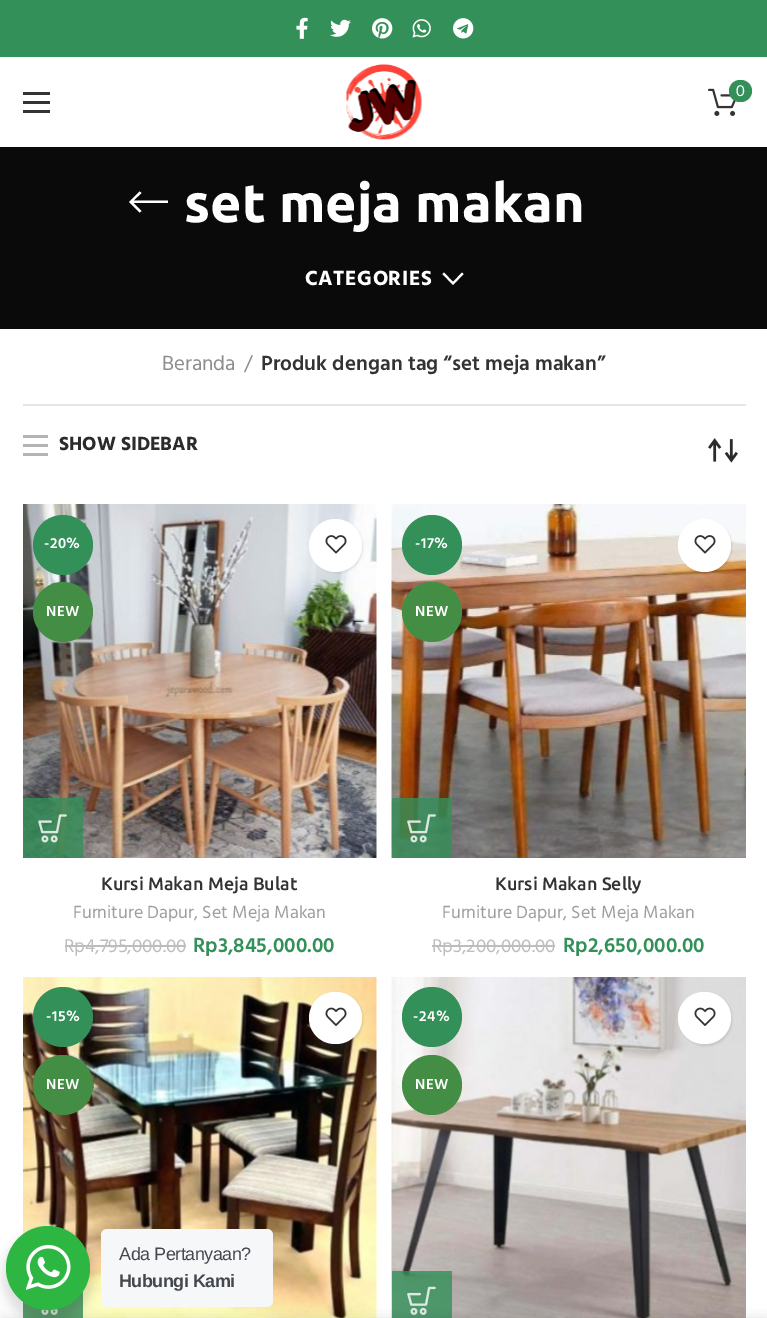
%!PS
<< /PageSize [767 1318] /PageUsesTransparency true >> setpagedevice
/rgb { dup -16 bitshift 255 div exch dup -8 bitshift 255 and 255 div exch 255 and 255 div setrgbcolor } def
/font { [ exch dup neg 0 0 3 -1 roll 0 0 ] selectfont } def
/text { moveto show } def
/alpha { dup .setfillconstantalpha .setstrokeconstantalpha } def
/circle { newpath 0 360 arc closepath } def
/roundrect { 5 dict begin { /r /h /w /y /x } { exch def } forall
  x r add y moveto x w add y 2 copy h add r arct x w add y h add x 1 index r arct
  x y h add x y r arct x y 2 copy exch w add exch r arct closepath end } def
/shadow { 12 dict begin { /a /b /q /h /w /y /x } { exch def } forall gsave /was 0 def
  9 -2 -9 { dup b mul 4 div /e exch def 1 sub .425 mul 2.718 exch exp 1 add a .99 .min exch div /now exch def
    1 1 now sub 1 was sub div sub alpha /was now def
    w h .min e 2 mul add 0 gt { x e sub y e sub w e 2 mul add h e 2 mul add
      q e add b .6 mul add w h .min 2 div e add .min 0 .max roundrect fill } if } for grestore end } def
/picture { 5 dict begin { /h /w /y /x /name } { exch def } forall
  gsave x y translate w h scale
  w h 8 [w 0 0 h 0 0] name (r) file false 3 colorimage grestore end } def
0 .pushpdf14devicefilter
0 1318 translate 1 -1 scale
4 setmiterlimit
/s1 { /Lato-Regular 15 font 16#FFFFFF rgb } def
/s2 { /Ubuntu-Bold 54 font 16#FFFFFF rgb } def
/s3 { /Hind-Regular 21 font 16#8E8E8E rgb } def
/s4 { /Hind-SemiBold 21 font 16#333333 rgb } def
/s5 { /Hind-Bold 19.5 font 16#2D2A2A rgb } def
/s6 { /Ubuntu-Medium 18 font 16#333333 rgb } def
/s7 { /Hind-Regular 18 font 16#9E9E9E rgb } def
/s8 { /Hind-Regular 19 font 16#BDBDBD rgb } def
/s9 { /Hind-SemiBold 21 font 16#339059 rgb } def
16#FFFFFF rgb
0 0 767 1318 rectfill
16#339059 rgb
0 0 767 57 rectfill
(pic1.raw) 296 17 12 22 picture
(pic2.raw) 330 19 21 18 picture
(pic3.raw) 372 18 21 21 picture
(pic4.raw) 412 19 19 19 picture
(pic5.raw) 453 18 21 21 picture
16#333333 rgb
23 101 27 3 rectfill
23 92 27 3 rectfill
23 110 27 3 rectfill
(pic6.raw) 346 64 76 76 picture
(pic7.raw) 708 88 28 28 picture
16#339059 rgb
729 80 23 22 11 roundrect fill
s1
(0) 736 96 text
16#0A0A0A rgb
0 147 767 182 rectfill
16#FFFFFF rgb
168 200.5 moveto 168 203 lineto 133.5 203 lineto 141.5 211 lineto 139.5 212.5 lineto 129 202 lineto 139.5 191.5 lineto 141.5 193 lineto 133.5 200.5 lineto closepath fill
s2
(set meja makan) 184 222 text
/Hind-Bold 21 font
305 285 moveto 0.5 0 (CATEGORIES) ashow
462 272.5 moveto 463.5 274 lineto 453 285 lineto 442.5 274 lineto 444 272.5 lineto 453 282 lineto closepath fill
16#E6E6E6 rgb
23 404 723 2 rectfill
s3
(Beranda) 162 370 text
(/) 244 370 text
s4
(Produk dengan tag “set meja makan”) 261 370 text
16#B3B3B3 rgb
23 444 25 3 rectfill
23 435 25 3 rectfill
23 453 25 3 rectfill
s5
(SHOW SIDEBAR) 59 450 text
(pic8.raw) 708 438 30 25 picture
(pic9.raw) 23 504 354 354 picture
16#339059 rgb
63 545 30 circle fill
/Hind-SemiBold 15 font
16#FFFFFF rgb
44 548 moveto 0.5 0 (-20%) ashow
16#438E44 rgb
63 612 30 circle fill
16#FFFFFF rgb
46 616 moveto 0.5 0 (NEW) ashow
16#000000 rgb
311 521 52 52 26 1 0.1 shadow
16#FFFFFF rgb
335.5 545.5 26.5 circle fill
(pic10.raw) 325 535 22 19 picture
0.8 alpha
16#339059 rgb
23 798 60 60 rectfill
1 alpha
(pic11.raw) 38 814 29 29 picture
s6
(Kursi Makan Meja Bulat) 101 890 text
s7
(Furniture Dapur, Set Meja Makan) 73 918 text
s8
(Rp) 64 952 text
65 945 21 2 rectfill
(4,795,000.00) 85 952 text
86 945 100 2 rectfill
s9
(Rp3,845,000.00) 193 952 text
(pic12.raw) 391 504 355 354 picture
432 545 30 circle fill
/Hind-SemiBold 15 font
16#FFFFFF rgb
415 548 moveto 0.5 0 (-17%) ashow
16#438E44 rgb
432 612 30 circle fill
16#FFFFFF rgb
415 616 moveto 0.5 0 (NEW) ashow
16#000000 rgb
680 521 52 52 26 1 0.1 shadow
16#FFFFFF rgb
704.5 545.5 26.5 circle fill
(pic10.raw) 694 535 22 19 picture
0.8 alpha
16#339059 rgb
392 798 60 60 rectfill
1 alpha
(pic13.raw) 407 814 29 29 picture
s6
(Kursi Makan Selly) 495 890 text
s7
(Furniture Dapur, Set Meja Makan) 442 918 text
s8
(Rp3,200,000.00) 432 952 text
432 945 123 2 rectfill
s9
(Rp2,650,000.00) 563 952 text
(pic14.raw) 23 977 354 341 picture
63 1017 30 circle fill
/Hind-SemiBold 15 font
16#FFFFFF rgb
46 1021 moveto 0.5 0 (-15%) ashow
16#438E44 rgb
63 1085 30 circle fill
16#FFFFFF rgb
46 1089 moveto 0.5 0 (NEW) ashow
16#000000 rgb
311 993 52 53 26 1 0.1 shadow
16#FFFFFF rgb
309 992 53 52 26 roundrect fill
(pic15.raw) 325 1007 22 19 picture
0.8 alpha
16#339059 rgb
23 1291 60 27 rectfill
1 alpha
(pic16.raw) 41 1309 17 6 picture
(pic17.raw) 391 977 355 341 picture
432 1017 30 circle fill
16#FFFFFF rgb
413 1021 moveto 0.5 0 (-24%) ashow
16#438E44 rgb
432 1085 30 circle fill
16#FFFFFF rgb
415 1089 moveto 0.5 0 (NEW) ashow
16#000000 rgb
680 993 52 53 26 1 0.1 shadow
16#FFFFFF rgb
678 992 53 52 26 roundrect fill
(pic15.raw) 694 1007 22 19 picture
0.8 alpha
16#339059 rgb
392 1271 60 47 rectfill
1 alpha
(pic18.raw) 407 1286 29 29 picture
16#000000 rgb
3 1232 90 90 45 6 0.14 shadow
0 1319 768 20 0 7 0.14 shadow
16#2DB742 rgb
48 1268 42 circle fill
(pic19.raw) 26 1245 45 45 picture
16#F5F7F9 rgb
101 1229 172 78 6 roundrect fill
/LiberationSans-Regular 18 font
16#43474E rgb
119 1260 moveto -0.5 0 (Ada Pertanyaan?) ashow
/LiberationSans-Bold 18 font
119 1287 moveto -0.5 0 (Hubungi Kami) ashow
.poppdf14devicefilter showpage
